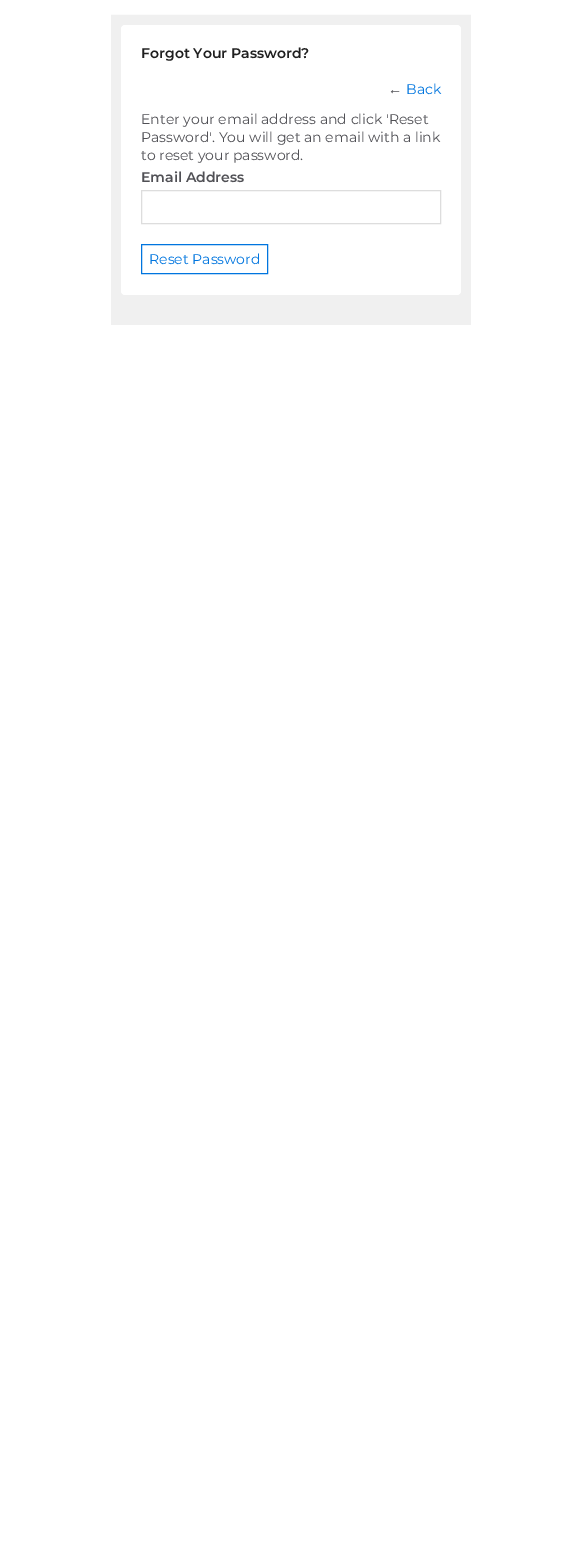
%!PS
<< /PageSize [582 1561] >> setpagedevice
/rgb { dup -16 bitshift 255 div exch dup -8 bitshift 255 and 255 div exch 255 and 255 div setrgbcolor } def
/font { [ exch dup neg 0 0 3 -1 roll 0 0 ] selectfont } def
/text { moveto show } def
/roundrect { 5 dict begin { /r /h /w /y /x } { exch def } forall
  x r add y moveto x w add y 2 copy h add r arct x w add y h add x 1 index r arct
  x y h add x y r arct x y 2 copy exch w add exch r arct closepath end } def
0 1561 translate 1 -1 scale
4 setmiterlimit
/s1 { /Montserrat-SemiBold 14 font 16#1F1F1F rgb } def
/s2 { /LiberationSans-Regular 14 font 16#505055 rgb } def
/s3 { /Montserrat-Thin 14 font 16#0075DF rgb } def
/s4 { /Montserrat-Thin 14 font 16#505055 rgb } def
/s5 { /Montserrat-SemiBold 14 font 16#505055 rgb } def
16#FFFFFF rgb
0 0 582 1561 rectfill
16#F0F0F0 rgb
111 15 360 310 rectfill
16#FBFBFB rgb
111 14 360 1 rectfill
16#FFFFFF rgb
121 25 340 270 4 roundrect fill
s1
(Forgot Your Password?) 141 58 text
s2
(←) 388 94 text
s3
(Back) 406 94 text
s4
(Enter your email address and click 'Reset) 141 124 text
(Password'. You will get an email with a link) 141 142 text
(to reset your password.) 141 160 text
s5
(Email Address) 141 182 text
16#DDDDDD rgb
141.5 190.5 299 33 rectstroke
16#0075DF rgb
141.5 244.5 126 29 rectstroke
s3
(Reset Password) 149 264 text
showpage
